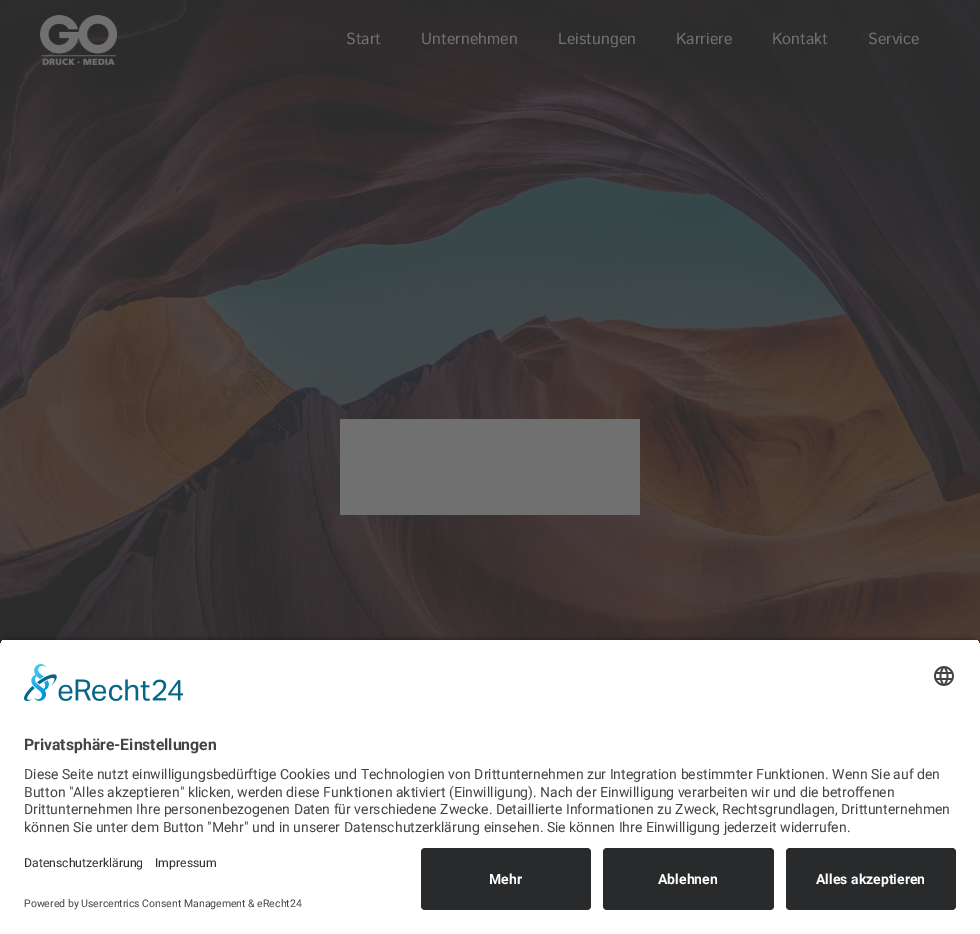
%!PS
<< /PageSize [980 934] /PageUsesTransparency true >> setpagedevice
/rgb { dup -16 bitshift 255 div exch dup -8 bitshift 255 and 255 div exch 255 and 255 div setrgbcolor } def
/font { [ exch dup neg 0 0 3 -1 roll 0 0 ] selectfont } def
/text { moveto show } def
/alpha { dup .setfillconstantalpha .setstrokeconstantalpha } def
/roundrect { 5 dict begin { /r /h /w /y /x } { exch def } forall
  x r add y moveto x w add y 2 copy h add r arct x w add y h add x 1 index r arct
  x y h add x y r arct x y 2 copy exch w add exch r arct closepath end } def
/shadow { 12 dict begin { /a /b /q /h /w /y /x } { exch def } forall gsave /was 0 def
  9 -2 -9 { dup b mul 4 div /e exch def 1 sub .425 mul 2.718 exch exp 1 add a .99 .min exch div /now exch def
    1 1 now sub 1 was sub div sub alpha /was now def
    w h .min e 2 mul add 0 gt { x e sub y e sub w e 2 mul add h e 2 mul add
      q e add b .6 mul add w h .min 2 div e add .min 0 .max roundrect fill } if } for grestore end } def
/picture { 5 dict begin { /h /w /y /x /name } { exch def } forall
  gsave x y translate w h scale
  w h 8 [w 0 0 h 0 0] name (r) file false 3 colorimage grestore end } def
0 .pushpdf14devicefilter
0 934 translate 1 -1 scale
4 setmiterlimit
/s1 { /IstokWeb-Regular 16 font 16#707070 rgb } def
/s2 { /Roboto-Bold 15.75 font 16#444444 rgb } def
/s3 { /Roboto-Regular 14 font 16#444444 rgb } def
/s4 { /Roboto-Regular 12.25 font 16#303030 rgb } def
/s5 { /Roboto-Regular 10.5 font 16#444444 rgb } def
/s6 { /Roboto-Bold 14 font 16#FFFFFF rgb } def
16#FFFFFF rgb
0 0 980 934 rectfill
(pic1.raw) 0 0 980 647 picture
16#707070 rgb
340 419 300 96 rectfill
(pic2.raw) 40 15 77 50 picture
s1
(Start) 346 44 text
(Unternehmen) 421 44 text
(Leistungen) 558 44 text
(Karriere) 676 44 text
(Kontakt) 772 44 text
(Service) 868 44 text
16#000000 rgb
0 642 980 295 8 3.5 0.8 shadow
gsave
8 639 moveto 972 639 lineto 976.5 639 980 642.5 980 647 curveto 980 840 lineto 0 840 lineto 0 647 lineto 0 642.5 3.5 639 8 639 curveto closepath clip newpath
16#FFFFFF rgb
0 640 980 200 rectfill
grestore
(pic3.raw) 24 664 160 37 picture
(pic4.raw) 934 666 20 20 picture
s2
(Privatsphäre-Einstellungen) 24 750 text
s3
(Diese Seite nutzt einwilligungsbedürftige Cookies und Technologien von Drittunternehmen zur Integration bestimmter Funktionen. Wenn Sie auf den) 24 779 text
(Button "Alles akzeptieren" klicken, werden diese Funktionen aktiviert \(Einwilligung\). Nach der Einwilligung verarbeiten wir und die betroffenen) 24 797 text
(Drittunternehmen Ihre personenbezogenen Daten für verschiedene Zwecke. Detaillierte Informationen zu Zweck, Rechtsgrundlagen, Drittunternehmen) 24 814 text
(können Sie unter dem Button "Mehr" und in unserer Datenschutzerklärung einsehen. Sie können Ihre Einwilligung jederzeit widerrufen.) 24 832 text
16#FFFFFF rgb
0 840 980 94 rectfill
s4
(Datenschutzerklärung) 24 867 text
(Impressum) 155 867 text
s5
(Powered by Usercentrics Consent Management & eRecht24) 24 907 text
16#292A2B rgb
421 848 170 62 4 roundrect fill
s6
(Mehr) 489 884 text
16#292A2B rgb
603 848 171 62 4 roundrect fill
s6
(Ablehnen) 658 884 text
16#292A2B rgb
786 848 170 62 4 roundrect fill
s6
(Alles akzeptieren) 816 884 text
.poppdf14devicefilter showpage
